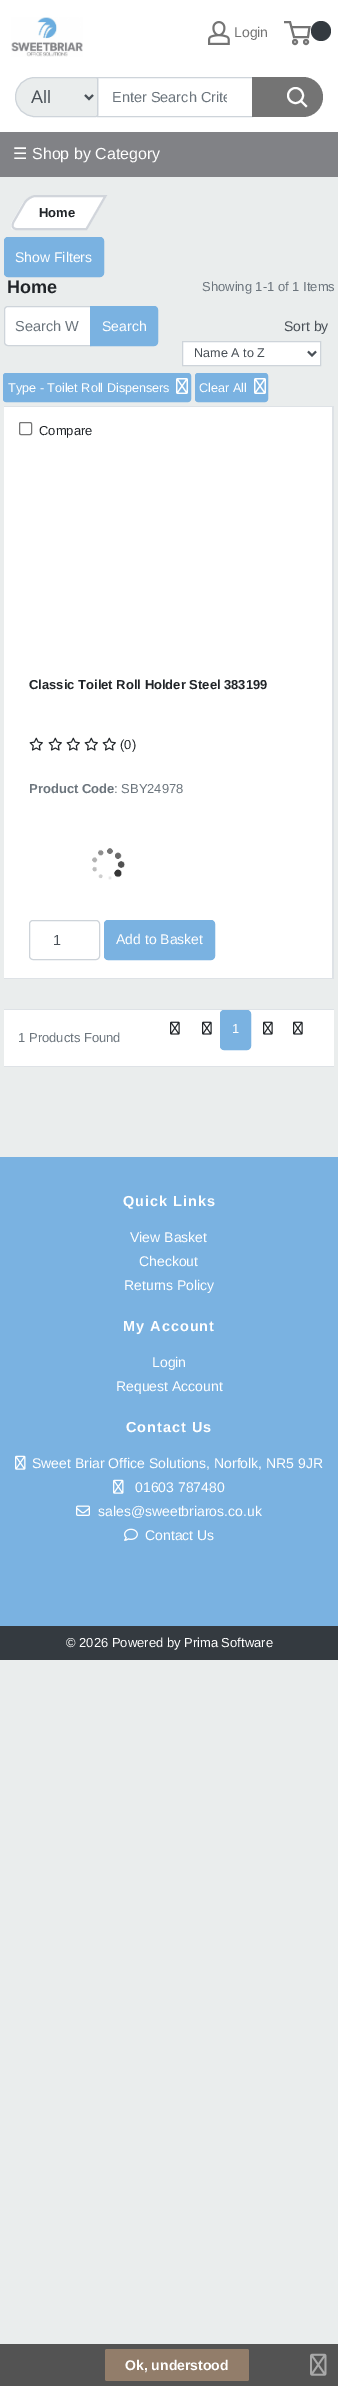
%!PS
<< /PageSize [338 2386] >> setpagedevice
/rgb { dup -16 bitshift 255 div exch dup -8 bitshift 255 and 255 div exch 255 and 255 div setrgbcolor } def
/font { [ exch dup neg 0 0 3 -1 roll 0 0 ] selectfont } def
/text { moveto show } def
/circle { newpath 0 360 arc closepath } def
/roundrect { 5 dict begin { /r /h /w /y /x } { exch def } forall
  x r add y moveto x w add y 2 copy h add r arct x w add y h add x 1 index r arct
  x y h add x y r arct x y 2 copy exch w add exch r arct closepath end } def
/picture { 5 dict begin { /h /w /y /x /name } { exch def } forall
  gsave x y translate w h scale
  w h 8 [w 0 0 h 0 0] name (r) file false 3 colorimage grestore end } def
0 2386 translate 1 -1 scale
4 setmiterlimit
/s1 { /LiberationSans-Regular 14 font 16#747474 rgb } def
/s2 { /LiberationSans-Regular 18 font 16#495057 rgb } def
/s3 { /LiberationSans-Regular 14.5 font 16#6C757D rgb } def
/s4 { /DejaVuSans-Regular 16 font 16#FFFFFF rgb } def
/s5 { /LiberationSans-Regular 16 font 16#FFFFFF rgb } def
/s6 { /LiberationSans-Bold 13 font 16#212529 rgb } def
/s7 { /LiberationSans-Regular 14 font 16#FFFFFF rgb } def
/s8 { /LiberationSans-Bold 18 font 16#212529 rgb } def
/s9 { /LiberationSans-Regular 13 font 16#6C757D rgb } def
/s10 { /LiberationSans-Regular 14 font 16#495057 rgb } def
/s11 { /LiberationSans-Regular 12.6 font 16#495057 rgb } def
/s12 { /LiberationSans-Regular 12.6 font 16#FFFFFF rgb } def
/s13 { /LiberationSans-Regular 13 font 16#212529 rgb } def
/s14 { /LiberationSans-Bold 13 font 16#6C757D rgb } def
/s15 { /LiberationSans-Regular 14.5 font 16#495057 rgb } def
/s16 { /LiberationSans-Regular 13 font 16#FFFFFF rgb } def
/s17 { /LiberationSans-Bold 14 font 16#FFFFFF rgb } def
16#EAEDED rgb
0 0 338 2386 rectfill
16#FFFFFF rgb
0 0 338 132 rectfill
(pic1.raw) 208 21 22 24 picture
s1
(Login) 234 37 text
2 setlinewidth
291.5 27 moveto 309.5 27 lineto 308 37 lineto 294 37 lineto 290 22 lineto 284 22 lineto stroke
16#343A40 rgb
321 31 10 circle fill
16#747474 rgb
295 42 2 circle stroke
306 42 2 circle stroke
(pic2.raw) 11 17 72 40 picture
16#EAEDED rgb
35 77.5 moveto 96 77.5 lineto 97 77.5 97.5 78 97.5 79 curveto 97.5 115 lineto 97.5 116 97 116.5 96 116.5 curveto 35 116.5 lineto 24 116.5 15.5 108 15.5 97 curveto 15.5 86 24 77.5 35 77.5 curveto closepath gsave fill grestore
16#CED4DA rgb
1 setlinewidth
stroke
16#495057 rgb
2 setlinewidth
85 95 moveto 89 99 lineto 93 95 lineto stroke
s2
(All) 31 103 text
16#CED4DA rgb
1 setlinewidth
97.5 77.5 155 39 rectstroke
gsave
112 89 115 16 rectclip
s3
(Enter Search Crite) 112 102 text
grestore
16#747474 rgb
252 77 moveto 303 77 lineto 314 77 323 86 323 97 curveto 323 108 314 117 303 117 curveto 252 117 lineto closepath fill
16#FFFFFF rgb
2 setlinewidth
2 setlinecap
306 106 moveto 301 101 lineto stroke
0 setlinecap
295.5 95.5 7.5 circle stroke
16#818286 rgb
0 132 338 45 rectfill
s4
(☰) 13 159 text
s5
(Shop by Category) 32 159 text
36 195 moveto 107 195 lineto 87 230 lineto 16 230 lineto 11 230 10 227 12 222 curveto 23 203 lineto 26 199 32 195 36 195 curveto closepath fill
16#D1D5DB rgb
35.5 196 moveto 105.5 196 lineto 86.5 229 lineto 16.5 229 lineto 12.5 229 11.5 226 13.5 222 curveto 24.5 203 lineto 26.5 199.5 31.5 196 35.5 196 curveto closepath stroke
s6
(Home) 39 217 text
16#7AB2E1 rgb
4.5 237.5 99 39 3.5 roundrect gsave fill grestore
1 setlinewidth
stroke
s7
(Show Filters) 15 262 text
s8
(Home) 7 293 text
s9
(Showing 1-1 of 1 Items) 202 291 text
16#FFFFFF rgb
7.5 307 moveto 90 307 lineto 90 345 lineto 7.5 345 lineto 6 345 5 344 5 342.5 curveto 5 309.5 lineto 5 308 6 307 7.5 307 curveto closepath fill
16#CED4DA rgb
8 306.5 moveto 90.5 306.5 lineto 90.5 345.5 lineto 8 345.5 lineto 6 345.5 4.5 344 4.5 342 curveto 4.5 310 lineto 4.5 308 6 306.5 8 306.5 curveto closepath stroke
s3
(Search W) 15 331 text
16#7AB2E1 rgb
90.5 306.5 moveto 154 306.5 lineto 156 306.5 157.5 308 157.5 310 curveto 157.5 342 lineto 157.5 344 156 345.5 154 345.5 curveto 90.5 345.5 lineto closepath gsave fill grestore
stroke
s7
(Search) 102 331 text
s10
(Sort by) 284 331 text
16#FFFFFF rgb
182.5 341.5 moveto 320.5 341.5 lineto 320.5 365.5 lineto 182.5 365.5 lineto closepath gsave fill grestore
16#CED4DA rgb
stroke
16#495057 rgb
2 setlinewidth
308 351.5 moveto 312 355.5 lineto 316 351.5 lineto stroke
s11
(Name A to Z) 194 357 text
16#7AB2E1 rgb
3.5 373.5 187 28 2.5 roundrect gsave fill grestore
1 setlinewidth
stroke
s12
(Type - Toilet Roll Dispensers) 8 392 text
(pic3.raw) 176 378 12 16 picture
16#7AB2E1 rgb
195.5 373.5 72 28 2.5 roundrect gsave fill grestore
stroke
s12
(Clear All) 199 392 text
(pic3.raw) 254 378 12 16 picture
4 407 328 571 rectfill
16#DEE2E6 rgb
4 406 330 1 rectfill
332 406 2 573 rectfill
4 978 330 1 rectfill
16#767676 rgb
19.5 422.5 12 12 1.5 roundrect stroke
s13
(Compare) 39 435 text
s6
(Classic Toilet Roll Holder Steel 383199) 29 689 text
(pic4.raw) 29 737 14 14 picture
(pic4.raw) 48 737 14 14 picture
(pic4.raw) 66 737 14 14 picture
(pic4.raw) 84 737 14 14 picture
(pic4.raw) 102 737 14 14 picture
s13
(\(0\)) 120 749 text
s14
(Product Code) 29 793 text
s9
(: SBY24978) 114 793 text
(pic5.raw) 92 848 33 32 picture
16#CED4DA rgb
29.5 920.5 70 39 3.5 roundrect stroke
s15
(1) 53 945 text
16#7AB2E1 rgb
104.5 920.5 110 39 3.5 roundrect gsave fill grestore
stroke
s7
(Add to Basket) 116 944 text
4 1010 330 56 rectfill
16#DEE2E6 rgb
4 1009 330 1 rectfill
4 1066 330 1 rectfill
(pic6.raw) 170 1021 10 14 picture
(pic6.raw) 202 1021 10 14 picture
16#7AB2E1 rgb
220.5 1010.5 30 39 3.5 roundrect gsave fill grestore
stroke
s16
(1) 232 1033 text
(pic6.raw) 263 1021 10 14 picture
(pic6.raw) 293 1021 10 14 picture
s9
(1 Products Found) 18 1042 text
16#7AB2E1 rgb
0 1157 338 469 rectfill
/LiberationSans-Bold 14.5 font
16#FFFFFF rgb
123 1206 moveto 1 0 (Quick Links) ashow
s7
(View Basket) 130 1242 text
(Checkout) 139 1266 text
(Returns Policy) 124 1290 text
/LiberationSans-Bold 14.5 font
123 1331 moveto 1 0 (My Account) ashow
s7
(Login) 152 1367 text
(Request Account) 116 1391 text
/LiberationSans-Bold 14.5 font
126 1432 moveto 1 0 (Contact Us) ashow
(pic7.raw) 15 1455 11 15 picture
s7
(Sweet Briar Office Solutions, Norfolk, NR5 9JR) 32 1468 text
(pic7.raw) 113 1479 11 15 picture
(01603 787480) 135 1492 text
(pic8.raw) 76 1505 14 11 picture
(sales@sweetbriaros.co.uk) 98 1516 text
(pic9.raw) 124 1528 14 13 picture
(Contact Us) 145 1540 text
16#343A40 rgb
0 1626 338 34 rectfill
s16
(© 2026 Powered by Prima Software) 66 1647 text
16#535353 rgb
0 2344 338 42 rectfill
16#927D6A rgb
105 2349 144 32 2 roundrect fill
s17
(Ok, understood) 125 2370 text
(pic10.raw) 310 2353 17 23 picture
showpage
